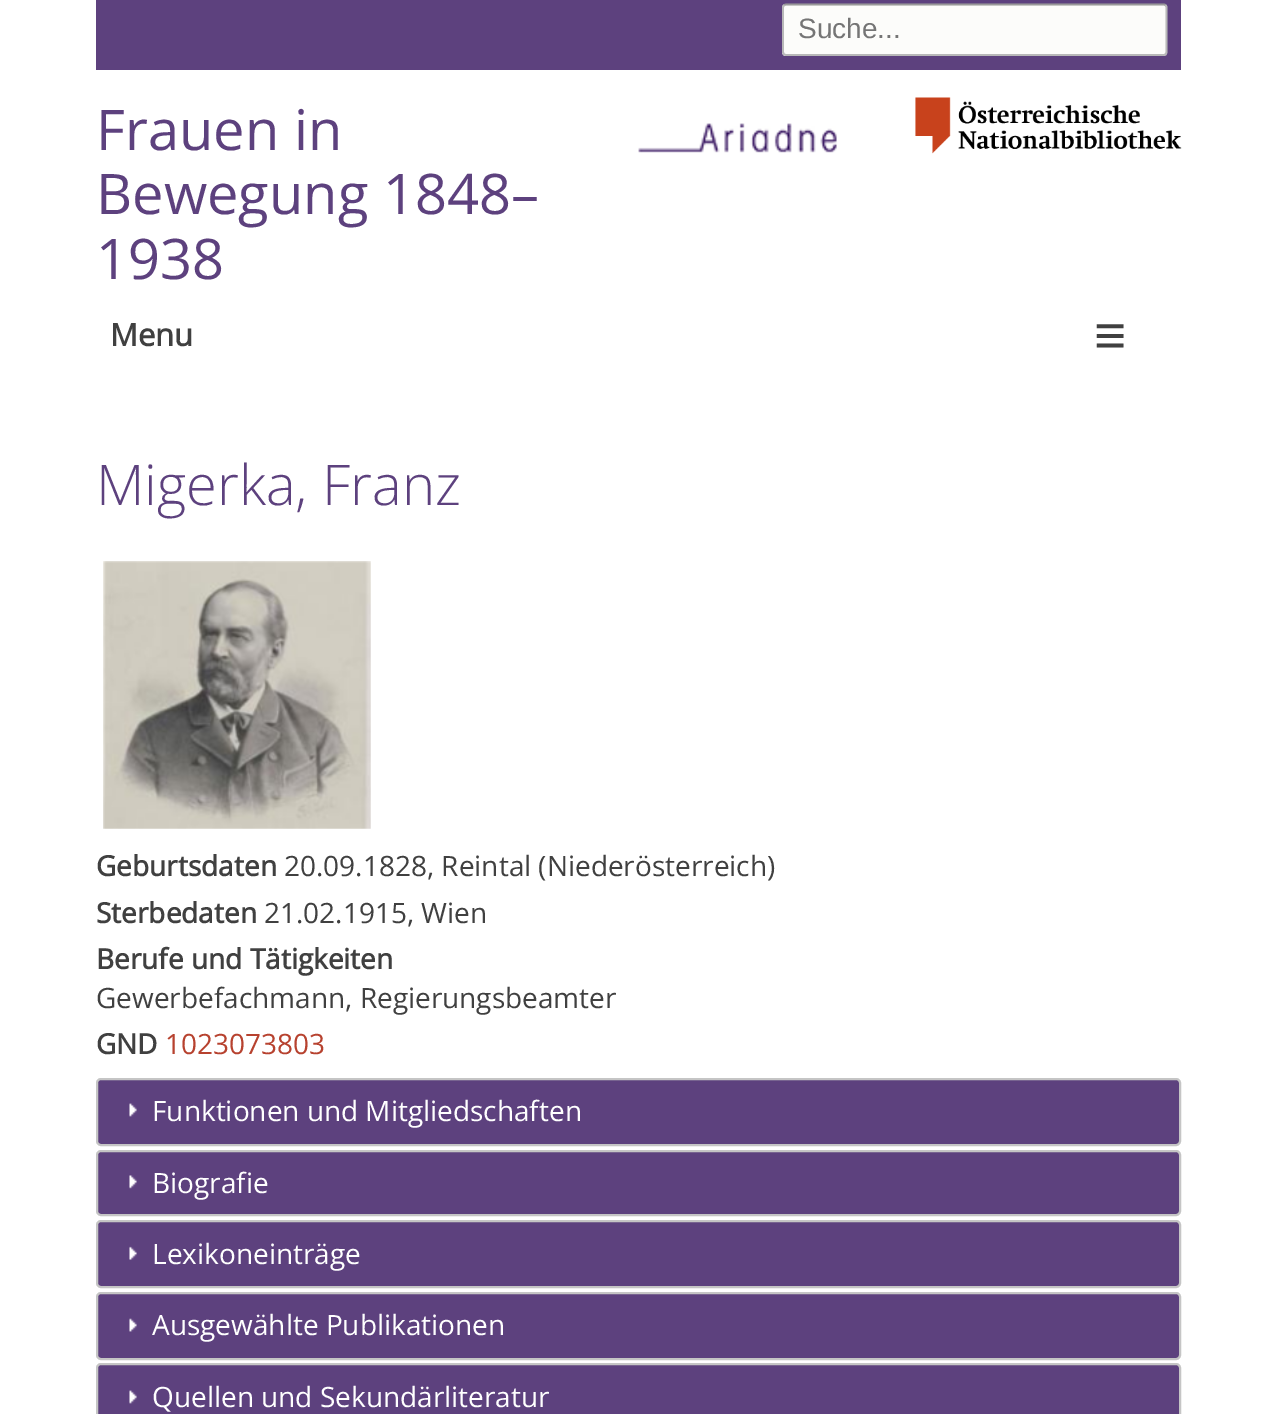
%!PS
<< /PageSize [1276 1414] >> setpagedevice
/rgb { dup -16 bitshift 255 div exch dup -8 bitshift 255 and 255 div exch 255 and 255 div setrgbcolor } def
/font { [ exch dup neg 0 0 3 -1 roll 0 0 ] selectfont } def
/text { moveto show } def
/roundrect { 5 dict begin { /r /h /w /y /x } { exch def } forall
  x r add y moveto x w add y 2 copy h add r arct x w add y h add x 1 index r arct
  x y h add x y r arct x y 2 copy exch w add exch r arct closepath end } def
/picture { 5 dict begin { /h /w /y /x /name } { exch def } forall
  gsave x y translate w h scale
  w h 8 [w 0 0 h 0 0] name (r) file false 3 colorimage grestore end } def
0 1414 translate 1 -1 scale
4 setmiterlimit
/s1 { /LiberationSans-Regular 28 font 16#757575 rgb } def
/s2 { /OpenSans-Regular 56 font 16#5D417E rgb } def
/s3 { /OpenSans-Bold 31 font 16#404040 rgb } def
/s4 { /LiberationSans-Bold 55 font 16#404040 rgb } def
/s5 { /OpenSans-Light 56 font 16#5D417E rgb } def
/s6 { /OpenSans-Bold 28 font 16#404040 rgb } def
/s7 { /OpenSans-Regular 28 font 16#404040 rgb } def
/s8 { /OpenSans-Regular 28 font 16#B7422F rgb } def
/s9 { /OpenSans-Regular 28 font 16#FFFFFF rgb } def
16#FFFFFF rgb
0 0 1276 1414 rectfill
16#5D417E rgb
96 0 1085 70 rectfill
16#FCFCFA rgb
782 4 385 52 4 roundrect fill
16#999999 rgb
1.8 setlinewidth
784 5 moveto 786 4.5 lineto 1164 4.5 lineto 1165.5 5 lineto stroke
16#B8B8B8 rgb
1165.5 5 moveto 1166.5 7 lineto 1166.5 52.5 lineto 1165.5 54.5 lineto 1164 55 lineto 786 55 lineto 784 54.5 lineto 783 52.5 lineto 783 7 lineto 784 5 lineto stroke
s1
(Suche...) 798 38 text
s2
(Frauen in) 96 150 text
(Bewegung 1848–) 96 214 text
(1938) 96 279 text
(pic1.raw) 638 123 199 30 picture
(pic2.raw) 915 97 267 57 picture
s3
(Menu) 110 346 text
s4
(≡) 1094 354 text
s5
(Migerka, Franz) 96 505 text
(pic3.raw) 103 561 268 268 picture
s6
(Geburtsdaten) 96 876 text
s7
(20.09.1828, Reintal \(Niederösterreich\)) 284 876 text
s6
(Sterbedaten) 96 923 text
s7
(21.02.1915, Wien) 264 923 text
s6
(Berufe und Tätigkeiten) 96 969 text
s7
(Gewerbefachmann, Regierungsbeamter) 96 1008 text
s6
(GND) 96 1054 text
s8
(1023073803) 165 1054 text
16#5D417E rgb
97 1079 1083 66 4 roundrect gsave fill grestore
16#C5C5C5 rgb
2 setlinewidth
stroke
(pic4.raw) 129 1103 8 14 picture
s9
(Funktionen und Mitgliedschaften) 152 1121 text
16#5D417E rgb
97 1151 1083 64 4 roundrect gsave fill grestore
16#C5C5C5 rgb
stroke
(pic5.raw) 129 1175 8 14 picture
s9
(Biografie) 152 1193 text
16#5D417E rgb
97 1221 1083 66 4 roundrect gsave fill grestore
16#C5C5C5 rgb
stroke
(pic6.raw) 129 1246 8 14 picture
s9
(Lexikoneinträge) 152 1264 text
16#5D417E rgb
97 1293 1083 66 4 roundrect gsave fill grestore
16#C5C5C5 rgb
stroke
(pic7.raw) 129 1318 8 14 picture
s9
(Ausgewählte Publikationen) 152 1335 text
16#5D417E rgb
97 1364 1083 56 4 roundrect gsave fill grestore
16#C5C5C5 rgb
stroke
(pic4.raw) 129 1390 8 14 picture
s9
(Quellen und Sekundärliteratur) 152 1407 text
showpage
